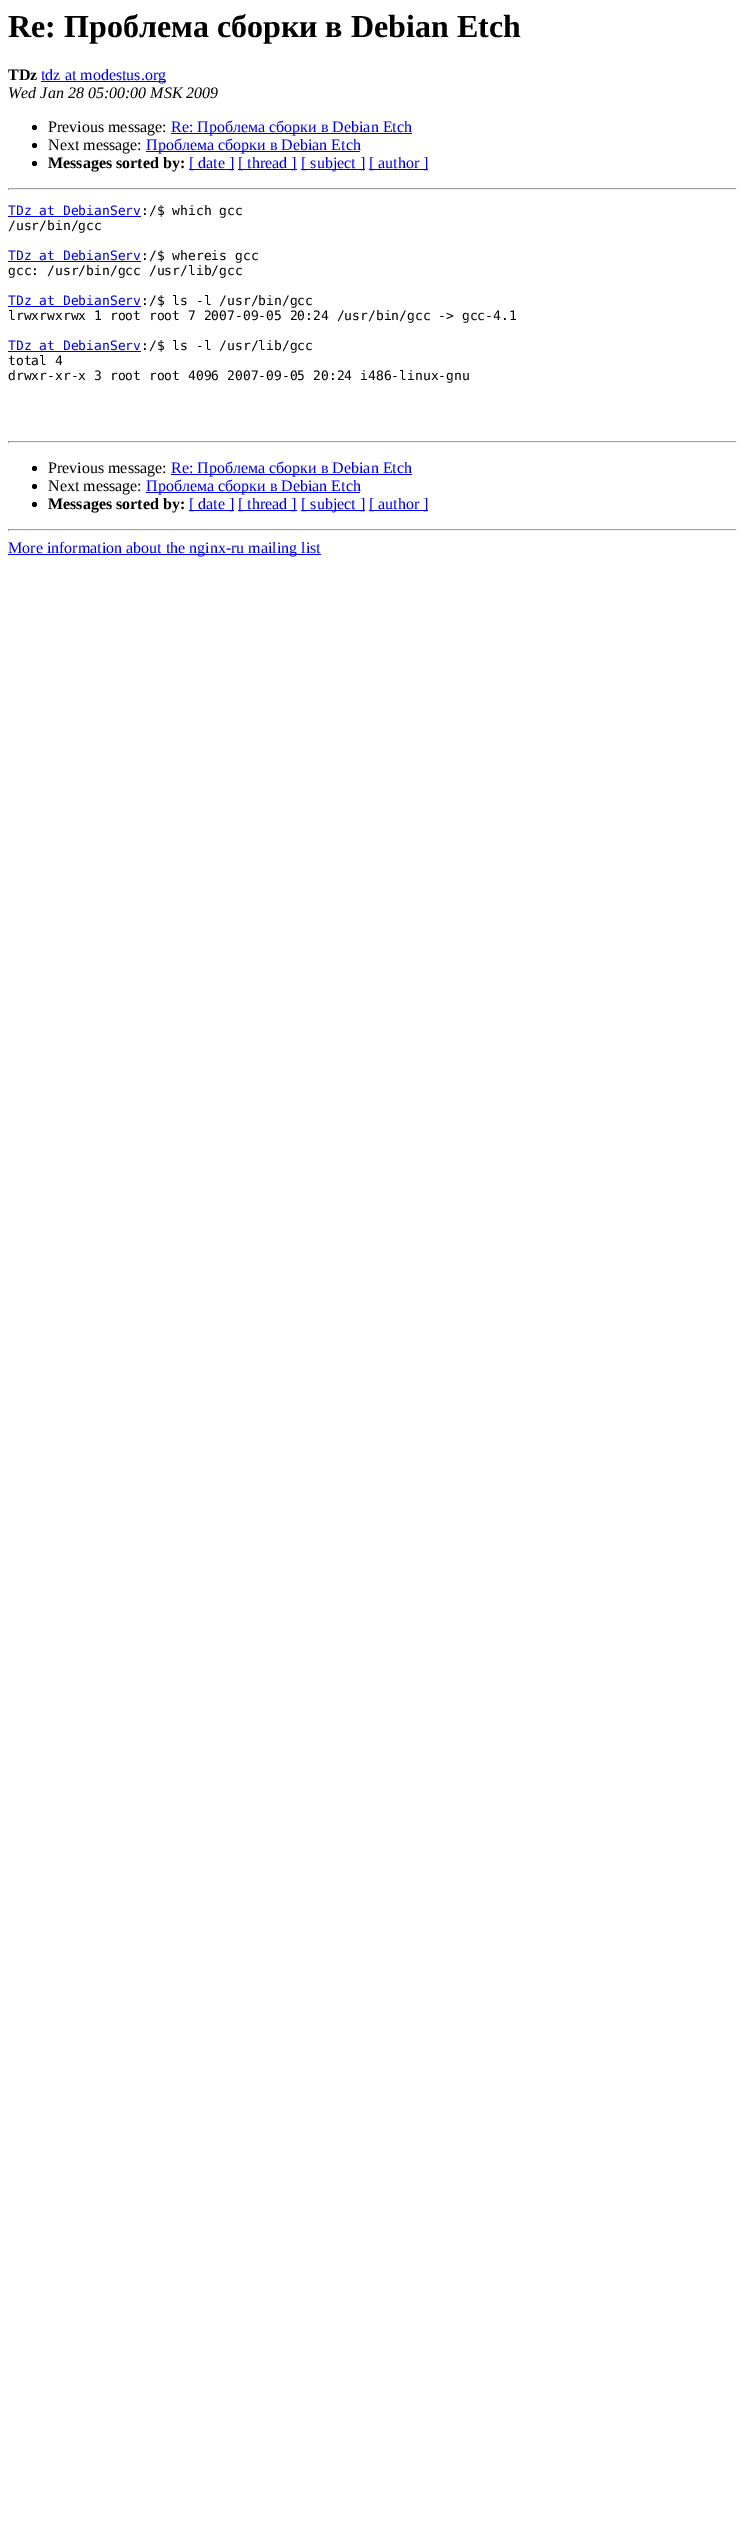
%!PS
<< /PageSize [745 2544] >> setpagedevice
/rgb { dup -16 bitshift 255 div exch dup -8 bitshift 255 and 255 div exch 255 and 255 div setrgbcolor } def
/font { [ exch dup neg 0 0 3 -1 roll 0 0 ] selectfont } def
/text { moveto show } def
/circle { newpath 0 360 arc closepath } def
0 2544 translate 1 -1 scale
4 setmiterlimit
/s1 { /LiberationSerif-Bold 32 font 16#000000 rgb } def
/s2 { /LiberationSerif-Bold 16 font 16#000000 rgb } def
/s3 { /LiberationSerif-Regular 16 font 16#0000EE rgb } def
/s4 { /LiberationSerif-Italic 16 font 16#000000 rgb } def
/s5 { /LiberationSerif-Regular 16 font 16#000000 rgb } def
/s6 { /DejaVuSansMono-Regular 13 font 16#0000EE rgb } def
/s7 { /DejaVuSansMono-Regular 13 font 16#000000 rgb } def
16#FFFFFF rgb
0 0 745 2544 rectfill
s1
(Re: Проблема сборки в Debian Etch) 8 37 text
s2
(TDz) 8 80 text
16#0000EE rgb
41 81 125 1 rectfill
s3
(tdz at modestus.org) 41 80 text
s4
(Wed Jan 28 05:00:00 MSK 2009) 8 98 text
34.5 127.5 2.5 circle fill
s5
(Previous message:) 48 132 text
16#0000EE rgb
171 133 241 1 rectfill
(Re: Проблема сборки в Debian Etch) 171 132 text
16#000000 rgb
34.5 145.5 2.5 circle fill
(Next message:) 48 150 text
16#0000EE rgb
146 151 214 1 rectfill
(Проблема сборки в Debian Etch) 146 150 text
16#000000 rgb
34.5 163.5 2.5 circle fill
s2
(Messages sorted by:) 48 168 text
16#0000EE rgb
189 169 45 1 rectfill
s3
([ date ]) 189 168 text
238 169 59 1 rectfill
([ thread ]) 238 168 text
301 169 64 1 rectfill
([ subject ]) 301 168 text
369 169 59 1 rectfill
([ author ]) 369 168 text
16#9F9F9F rgb
8 188 729 1 rectfill
16#EEEEEE rgb
736 188 1 2 rectfill
8 189 729 1 rectfill
16#9F9F9F rgb
8 188 1 2 rectfill
s6
(TDz at DebianServ) 8 215 text
8 216 133 1 rectfill
s7
(:/$ which gcc) 141 215 text
(/usr/bin/gcc) 8 230 text
s6
(TDz at DebianServ) 8 260 text
8 261 133 1 rectfill
s7
(:/$ whereis gcc) 141 260 text
(gcc: /usr/bin/gcc /usr/lib/gcc) 8 275 text
s6
(TDz at DebianServ) 8 305 text
8 306 133 1 rectfill
s7
(:/$ ls -l /usr/bin/gcc) 141 305 text
(lrwxrwxrwx 1 root root 7 2007-09-05 20:24 /usr/bin/gcc -> gcc-4.1) 8 320 text
s6
(TDz at DebianServ) 8 350 text
8 351 133 1 rectfill
s7
(:/$ ls -l /usr/lib/gcc) 141 350 text
(total 4) 8 365 text
(drwxr-xr-x 3 root root 4096 2007-09-05 20:24 i486-linux-gnu) 8 380 text
16#9F9F9F rgb
8 441 729 1 rectfill
16#EEEEEE rgb
736 441 1 2 rectfill
8 442 729 1 rectfill
16#9F9F9F rgb
8 441 1 2 rectfill
16#000000 rgb
34.5 468.5 2.5 circle fill
s5
(Previous message:) 48 473 text
16#0000EE rgb
171 474 241 1 rectfill
(Re: Проблема сборки в Debian Etch) 171 473 text
16#000000 rgb
34.5 486.5 2.5 circle fill
(Next message:) 48 491 text
16#0000EE rgb
146 492 214 1 rectfill
(Проблема сборки в Debian Etch) 146 491 text
16#000000 rgb
34.5 504.5 2.5 circle fill
s2
(Messages sorted by:) 48 509 text
16#0000EE rgb
189 510 45 1 rectfill
s3
([ date ]) 189 509 text
238 510 59 1 rectfill
([ thread ]) 238 509 text
301 510 64 1 rectfill
([ subject ]) 301 509 text
369 510 59 1 rectfill
([ author ]) 369 509 text
16#9F9F9F rgb
8 529 729 1 rectfill
16#EEEEEE rgb
736 529 1 2 rectfill
8 530 729 1 rectfill
16#9F9F9F rgb
8 529 1 2 rectfill
16#0000EE rgb
8 554 313 1 rectfill
(More information about the nginx-ru mailing list) 8 553 text
showpage
